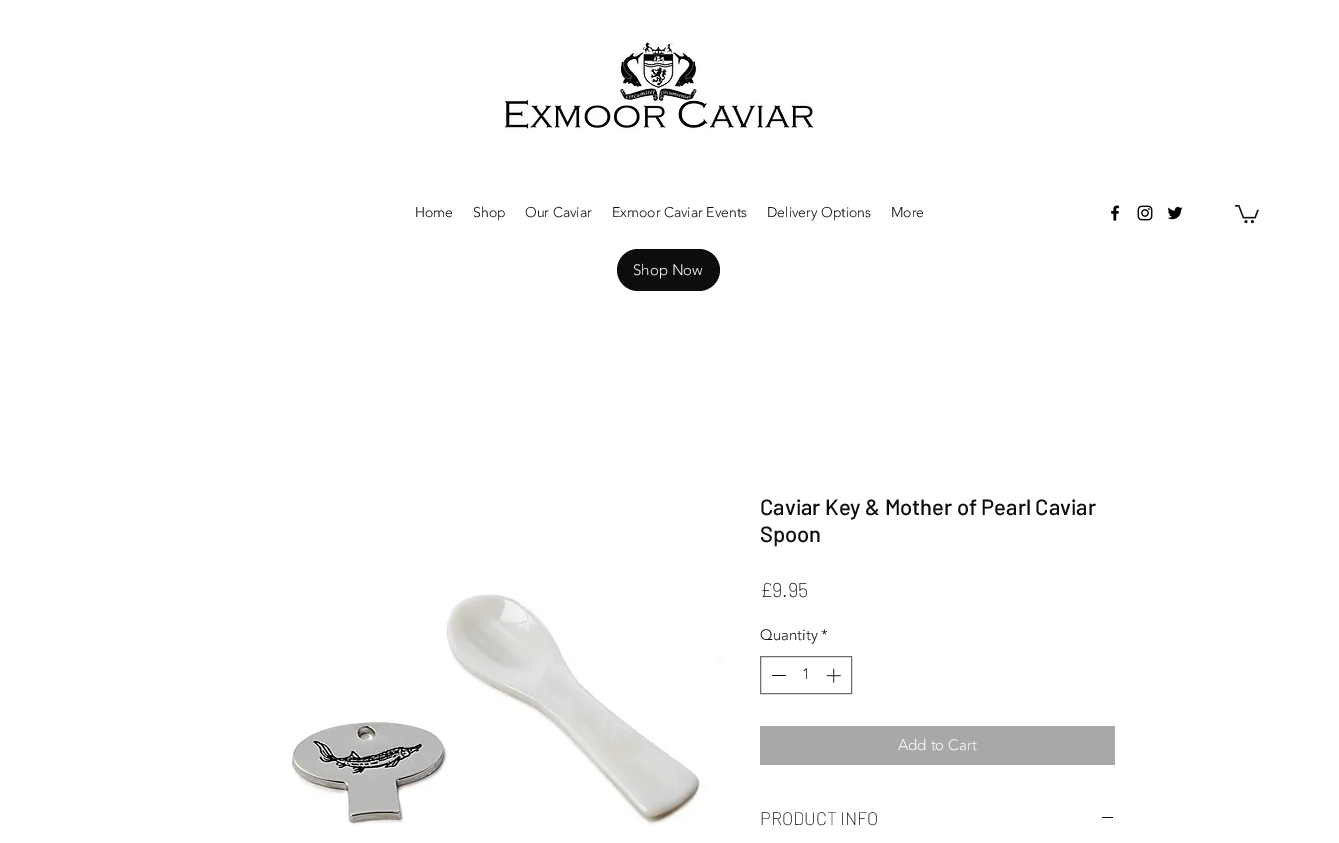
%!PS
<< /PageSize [1339 843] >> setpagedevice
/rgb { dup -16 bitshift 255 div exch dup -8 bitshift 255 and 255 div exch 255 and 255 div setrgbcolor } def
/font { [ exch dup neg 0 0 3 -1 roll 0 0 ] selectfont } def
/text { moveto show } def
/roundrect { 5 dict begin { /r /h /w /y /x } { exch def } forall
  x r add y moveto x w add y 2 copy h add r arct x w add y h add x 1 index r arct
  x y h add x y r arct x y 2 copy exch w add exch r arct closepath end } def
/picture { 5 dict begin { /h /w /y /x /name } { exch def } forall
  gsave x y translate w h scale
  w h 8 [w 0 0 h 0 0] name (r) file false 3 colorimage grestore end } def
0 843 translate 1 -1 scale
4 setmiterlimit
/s1 { /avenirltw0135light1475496-Light 14 font 16#0D0D0D rgb } def
/s2 { /avenirltw0135light1475496-Light 15 font 16#FFFFFF rgb } def
/s3 { /Barlow-Medium 22 font 16#0D0D0D rgb } def
/s4 { /Barlow-ExtraLight 20 font 16#0D0D0D rgb } def
/s5 { /avenirltw0135light1475496-Light 15 font 16#0D0D0D rgb } def
/s6 { /Barlow-ExtraLight 18 font 16#0D0D0D rgb } def
16#FFFFFF rgb
0 0 1339 843 rectfill
(pic1.raw) 502 42 312 88 picture
s1
(Home) 415 217 text
(Shop) 473 217 text
(Our Caviar) 525 217 text
(Exmoor Caviar Events) 612 217 text
(Delivery Options) 767 217 text
(More) 891 217 text
(pic2.raw) 1111 205 9 16 picture
(pic3.raw) 1137 205 16 16 picture
(pic4.raw) 1167 206 16 14 picture
(pic5.raw) 1235 205 24 19 picture
617 249 103 42 21 roundrect fill
s2
(Shop Now) 633 275 text
(pic6.raw) 291 594 433 232 picture
s3
(Caviar Key & Mother of Pearl Caviar) 760 515 text
(Spoon) 760 542 text
s4
(£9.95) 760 597 text
s5
(Quantity *) 760 640 text
16#6E6E6E rgb
760.5 656.5 91 37 rectstroke
16#0D0D0D rgb
772 675 14 1 rectfill
(1) 802 679 text
(pic7.raw) 826 668 15 15 picture
16#A8A8A8 rgb
760 726 355 39 rectfill
s2
(Add to Cart) 898 750 text
s6
(PRODUCT INFO) 760 825 text
1102 817 11 1 rectfill
showpage
